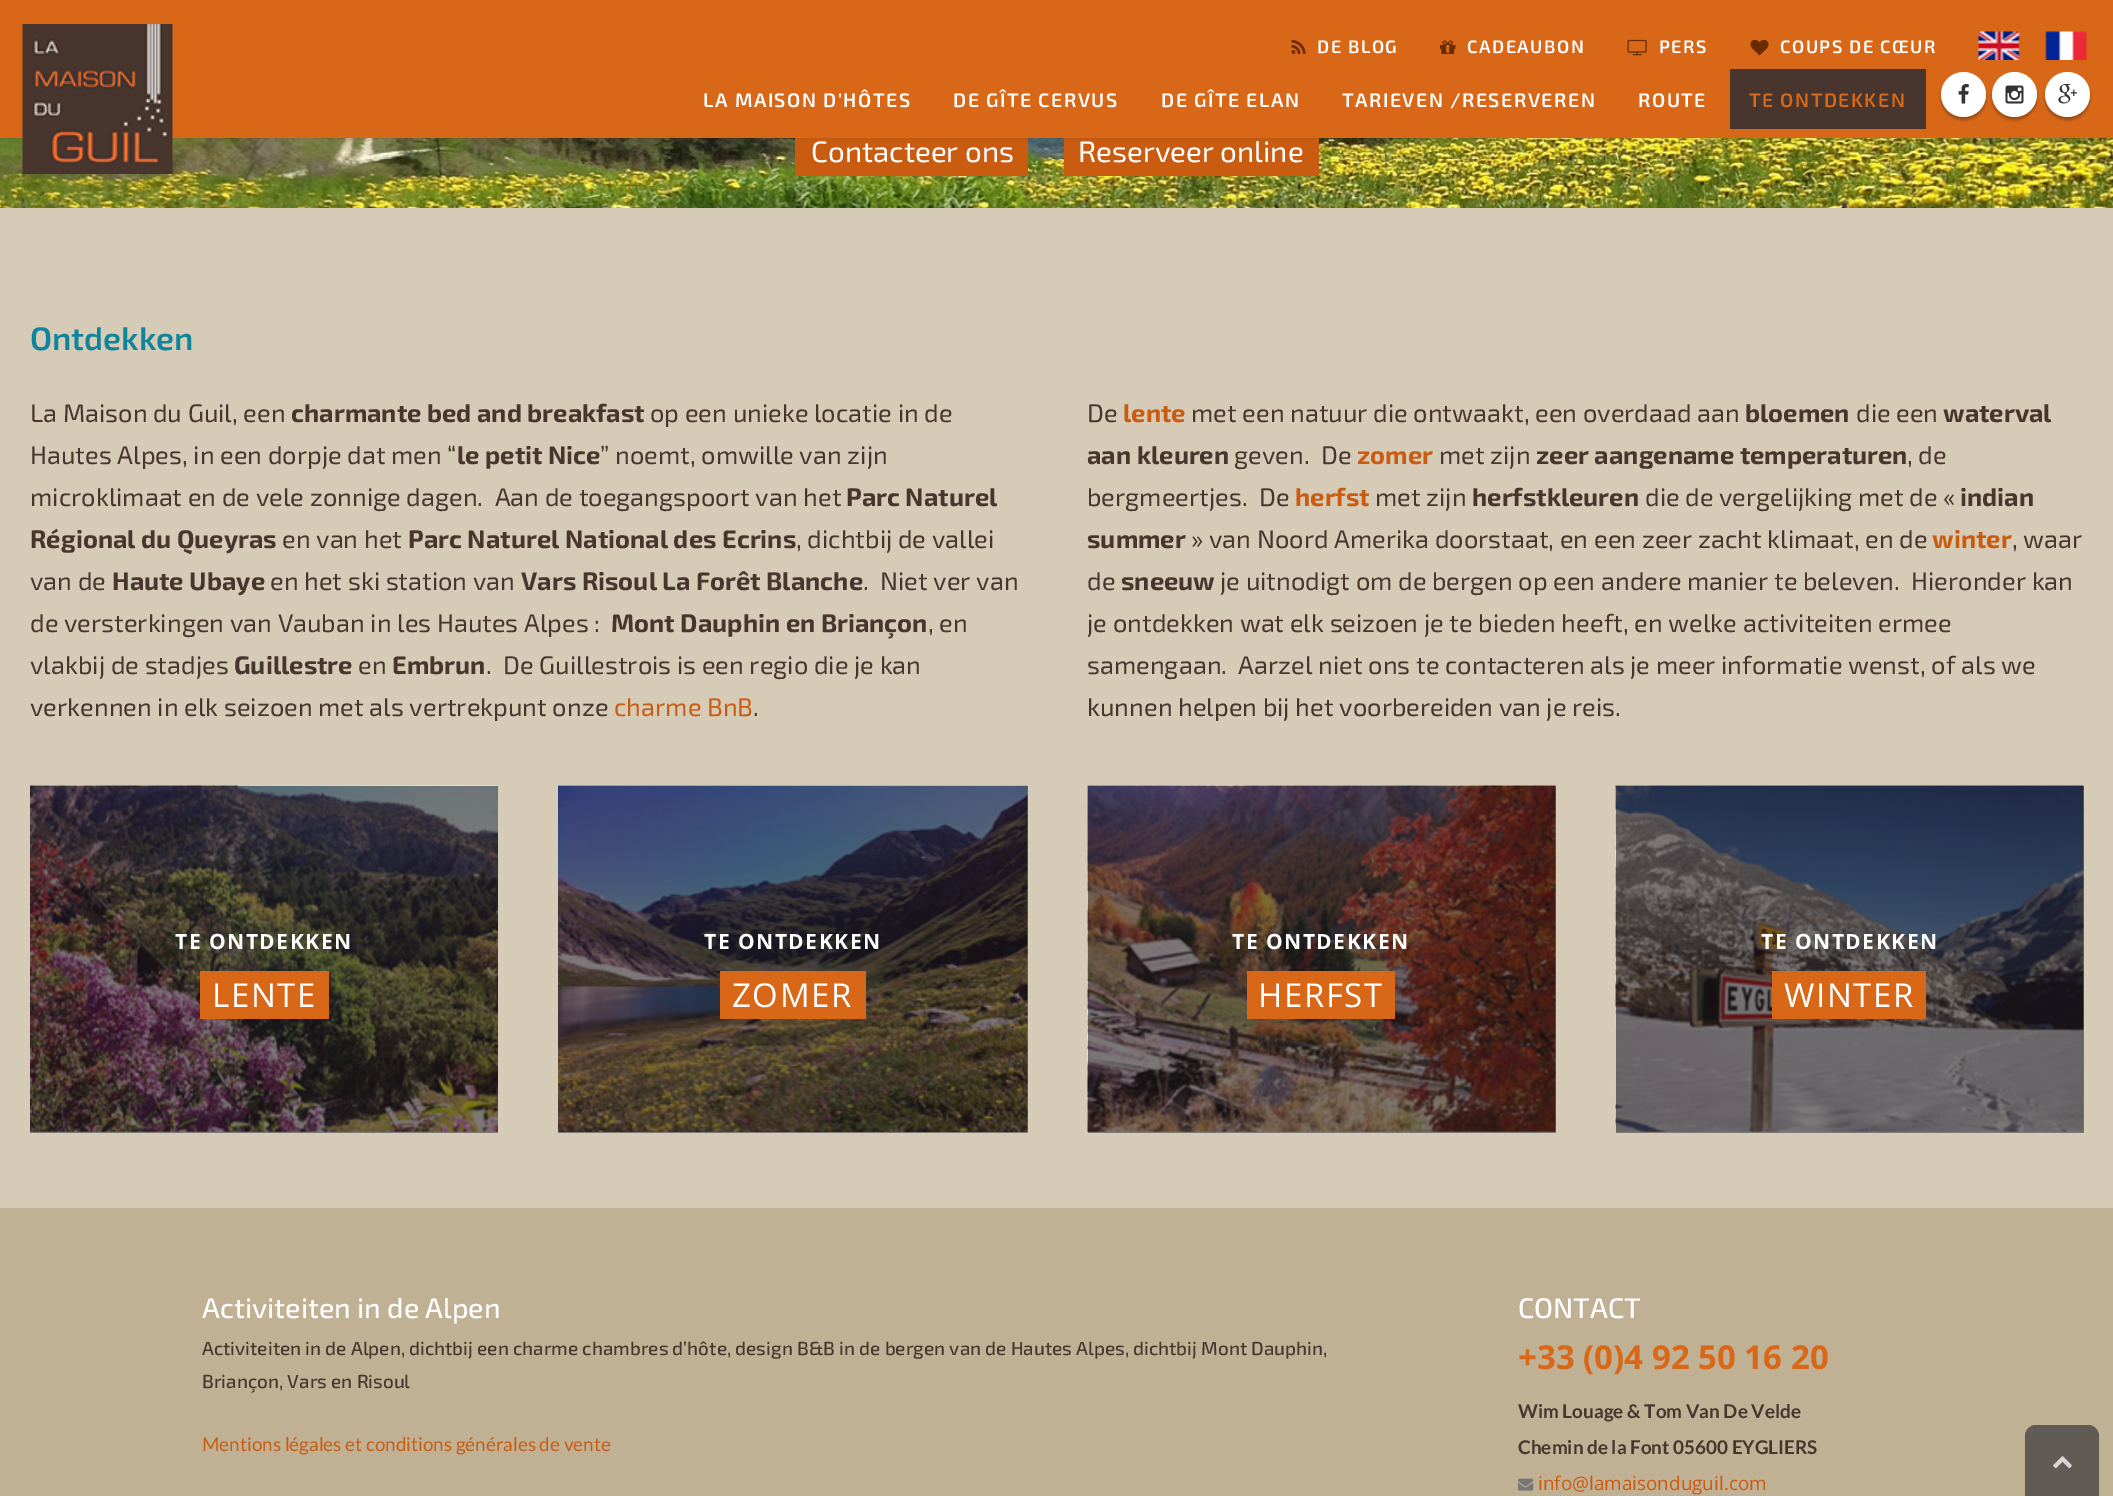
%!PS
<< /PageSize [2113 1496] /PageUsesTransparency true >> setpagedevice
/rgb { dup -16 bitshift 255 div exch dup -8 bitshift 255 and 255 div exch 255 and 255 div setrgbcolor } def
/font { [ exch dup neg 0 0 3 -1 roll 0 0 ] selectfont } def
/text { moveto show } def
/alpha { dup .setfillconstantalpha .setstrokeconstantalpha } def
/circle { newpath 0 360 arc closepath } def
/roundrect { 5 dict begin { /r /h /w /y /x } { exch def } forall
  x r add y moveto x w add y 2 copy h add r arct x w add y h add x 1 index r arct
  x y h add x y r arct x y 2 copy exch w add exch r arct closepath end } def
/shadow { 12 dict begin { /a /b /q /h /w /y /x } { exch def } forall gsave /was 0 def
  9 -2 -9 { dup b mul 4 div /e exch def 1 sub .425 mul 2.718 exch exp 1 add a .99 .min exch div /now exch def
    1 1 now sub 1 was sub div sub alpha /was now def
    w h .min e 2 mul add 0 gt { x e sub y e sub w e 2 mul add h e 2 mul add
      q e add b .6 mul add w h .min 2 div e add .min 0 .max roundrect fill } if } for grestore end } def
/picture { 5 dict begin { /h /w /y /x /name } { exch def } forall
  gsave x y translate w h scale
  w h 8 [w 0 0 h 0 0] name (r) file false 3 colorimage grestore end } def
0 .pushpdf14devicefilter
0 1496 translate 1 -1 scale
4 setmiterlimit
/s1 { /Exo2-Regular 29.5 font 16#FFFFFF rgb } def
/s2 { /Exo2-SemiBold 32.5 font 16#0E859B rgb } def
/s3 { /Exo2-Regular 25.4 font 16#47352E rgb } def
/s4 { /Exo2-Bold 25.4 font 16#47352E rgb } def
/s5 { /Exo2-Regular 25.4 font 16#C95C11 rgb } def
/s6 { /Exo2-Bold 25.4 font 16#C95C11 rgb } def
/s7 { /Exo2-Medium 28.4 font 16#FFFFFF rgb } def
/s8 { /Exo2-Medium 18.9 font 16#47352E rgb } def
/s9 { /Lato-Regular 18.9 font 16#C95C11 rgb } def
/s10 { /OpenSans-Bold 33 font 16#D96718 rgb } def
/s11 { /Lato-Bold 18.9 font 16#47352E rgb } def
/s12 { /OpenSans-Regular 18.9 font 16#C95C11 rgb } def
16#D6CBB7 rgb
0 0 2113 1496 rectfill
(pic11.raw) 0 138 2113 70 picture
16#C95C11 rgb
795 138 233 38 rectfill
1064 138 255 38 rectfill
16#000000 rgb
0 0 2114 138 0 2 0.1 shadow
16#D96718 rgb
0 0 2113 138 rectfill
(pic1.raw) 22 24 151 150 picture
(pic2.raw) 1291 39 15 15 picture
/Exo2-SemiBold 18 font
16#FFFFFF rgb
1317 53 moveto 1.5 0 (DE BLOG) ashow
(pic3.raw) 1440 40 16 14 picture
1467 53 moveto 1.5 0 (CADEAUBON) ashow
(pic4.raw) 1627 39 20 17 picture
1659 53 moveto 1.5 0 (PERS) ashow
(pic5.raw) 1750 39 19 17 picture
1780 53 moveto 1.5 0 (COUPS DE CŒUR) ashow
(pic6.raw) 1978 31 42 29 picture
(pic7.raw) 2045 31 42 29 picture
/Exo2-SemiBold 19.5 font
703 107 moveto 1.5 0 (LA MAISON D'HÔTES) ashow
953 107 moveto 1.5 0 (DE GÎTE CERVUS) ashow
1161 107 moveto 1.5 0 (DE GÎTE ELAN) ashow
1342 107 moveto 1.5 0 (TARIEVEN /RESERVEREN) ashow
1638 107 moveto 1.5 0 (ROUTE) ashow
16#47352E rgb
1730 69 196 60 rectfill
16#D96718 rgb
1749 107 moveto 1.5 0 (TE ONTDEKKEN) ashow
16#000000 rgb
1941 75 45 45 22.5 1.5 0.3 shadow
16#FFFFFF rgb
1963.5 94.5 22.5 circle fill
(pic8.raw) 1958 84 11 20 picture
16#000000 rgb
1992 75 45 45 22.5 1.5 0.3 shadow
16#FFFFFF rgb
2014.5 94.5 22.5 circle fill
(pic9.raw) 2005 85 19 19 picture
16#000000 rgb
2045 75 45 45 22.5 1.5 0.3 shadow
16#FFFFFF rgb
2067.5 94.5 22.5 circle fill
(pic10.raw) 2058 84 19 20 picture
s1
(Contacteer ons) 811 162 text
(Reserveer online) 1078 162 text
s2
(Ontdekken) 30 350 text
s3
(La Maison du Guil, een) 30 422 text
s4
(charmante bed and breakfast) 291 422 text
s3
(op een unieke locatie in de) 650 422 text
(Hautes Alpes, in een dorpje dat men “) 30 464 text
s4
(le petit Nice) 457 464 text
s3
(” noemt, omwille van zijn) 600 464 text
(microklimaat en de vele zonnige dagen.  Aan de toegangspoort van het) 30 506 text
s4
(Parc Naturel) 846 506 text
(Régional du Queyras) 30 548 text
s3
(en van het) 282 548 text
s4
(Parc Naturel National des Ecrins) 408 548 text
s3
(, dichtbij de vallei) 796 548 text
(van de) 30 590 text
s4
(Haute Ubaye) 112 590 text
s3
(en het ski station van) 270 590 text
s4
(Vars Risoul La Forêt Blanche) 521 590 text
s3
(.  Niet ver van) 863 590 text
(de versterkingen van Vauban in les Hautes Alpes :) 30 632 text
s4
(Mont Dauphin en Briançon) 611 632 text
s3
(, en) 928 632 text
(vlakbij de stadjes) 30 674 text
s4
(Guillestre) 234 674 text
s3
(en) 358 674 text
s4
(Embrun) 392 674 text
s3
(.  De Guillestrois is een regio die je kan) 486 674 text
(verkennen in elk seizoen met als vertrekpunt onze) 30 716 text
s5
(charme BnB) 614 716 text
s3
(.) 753 716 text
(De) 1087 422 text
s6
(lente) 1123 422 text
s3
(met een natuur die ontwaakt, een overdaad aan) 1191 422 text
s4
(bloemen) 1745 422 text
s3
(die een) 1856 422 text
s4
(waterval) 1943 422 text
(aan kleuren) 1087 464 text
s3
(geven.  De) 1234 464 text
s6
(zomer) 1357 464 text
s3
(met zijn) 1439 464 text
s4
(zeer aangename temperaturen) 1536 464 text
s3
(, de) 1907 464 text
(bergmeertjes.  De) 1087 506 text
s6
(herfst) 1295 506 text
s3
(met zijn) 1375 506 text
s4
(herfstkleuren) 1472 506 text
s3
(die de vergelijking met de «) 1645 506 text
s4
(indian) 1960 506 text
(summer) 1087 548 text
s3
(» van Noord Amerika doorstaat, en een zeer zacht klimaat, en de) 1191 548 text
s6
(winter) 1932 548 text
s3
(, waar) 2012 548 text
(de) 1087 590 text
s4
(sneeuw) 1121 590 text
s3
(je uitnodigt om de bergen op een andere manier te beleven.  Hieronder kan) 1220 590 text
(je ontdekken wat elk seizoen je te bieden heeft, en welke activiteiten ermee) 1087 632 text
(samengaan.  Aarzel niet ons te contacteren als je meer informatie wenst, of als we) 1087 674 text
(kunnen helpen bij het voorbereiden van je reis.) 1087 716 text
16#7E7879 rgb
30 1131 468 2 rectfill
(pic12.raw) 30 785 468 347 picture
/OpenSans-Bold 21 font
16#FFFFFF rgb
175 949 moveto 1.5 0 (TE ONTDEKKEN) ashow
16#D96718 rgb
200 971 129 48 rectfill
/OpenSans-Regular 33 font
16#FFFFFF rgb
212 1007 moveto 1.5 0 (LENTE) ashow
16#7E7879 rgb
558 786 470 347 rectfill
(pic13.raw) 558 785 470 347 picture
/OpenSans-Bold 21 font
16#FFFFFF rgb
704 949 moveto 1.5 0 (TE ONTDEKKEN) ashow
16#D96718 rgb
720 971 146 48 rectfill
/OpenSans-Regular 33 font
16#FFFFFF rgb
732 1007 moveto 1.5 0 (ZOMER) ashow
16#7E7879 rgb
1088 786 468 347 rectfill
(pic14.raw) 1087 785 469 347 picture
/OpenSans-Bold 21 font
16#FFFFFF rgb
1232 949 moveto 1.5 0 (TE ONTDEKKEN) ashow
16#D96718 rgb
1247 971 148 48 rectfill
/OpenSans-Regular 33 font
16#FFFFFF rgb
1258 1007 moveto 1.5 0 (HERFST) ashow
16#7E7879 rgb
1616 786 468 347 rectfill
(pic15.raw) 1615 785 469 347 picture
/OpenSans-Bold 21 font
16#FFFFFF rgb
1761 949 moveto 1.5 0 (TE ONTDEKKEN) ashow
16#D96718 rgb
1772 971 154 48 rectfill
/OpenSans-Regular 33 font
16#FFFFFF rgb
1784 1007 moveto 1.5 0 (WINTER) ashow
16#C0B094 rgb
0 1208 2113 288 rectfill
s7
(Activiteiten in de Alpen) 202 1318 text
s8
(Activiteiten in de Alpen, dichtbij een charme chambres d’hôte, design B&B in de bergen van de Hautes Alpes, dichtbij Mont Dauphin,) 202 1355 text
(Briançon, Vars en Risoul) 202 1388 text
s9
(Mentions légales et conditions générales de vente) 202 1451 text
s7
(CONTACT) 1518 1318 text
s10
(+33 \(0\)4 92 50 16 20) 1518 1369 text
s11
(Wim Louage & Tom Van De Velde) 1518 1418 text
(Chemin de la Font 05600 EYGLIERS) 1518 1454 text
(pic16.raw) 1518 1478 16 13 picture
s12
(info@lamaisonduguil.com) 1538 1490 text
16#605C55 rgb
2036 1425 moveto 2088 1425 lineto 2094 1425 2099 1430 2099 1436 curveto 2099 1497 lineto 2025 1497 lineto 2025 1436 lineto 2025 1430 2030 1425 2036 1425 curveto closepath fill
(pic17.raw) 2053 1456 19 13 picture
.poppdf14devicefilter showpage
